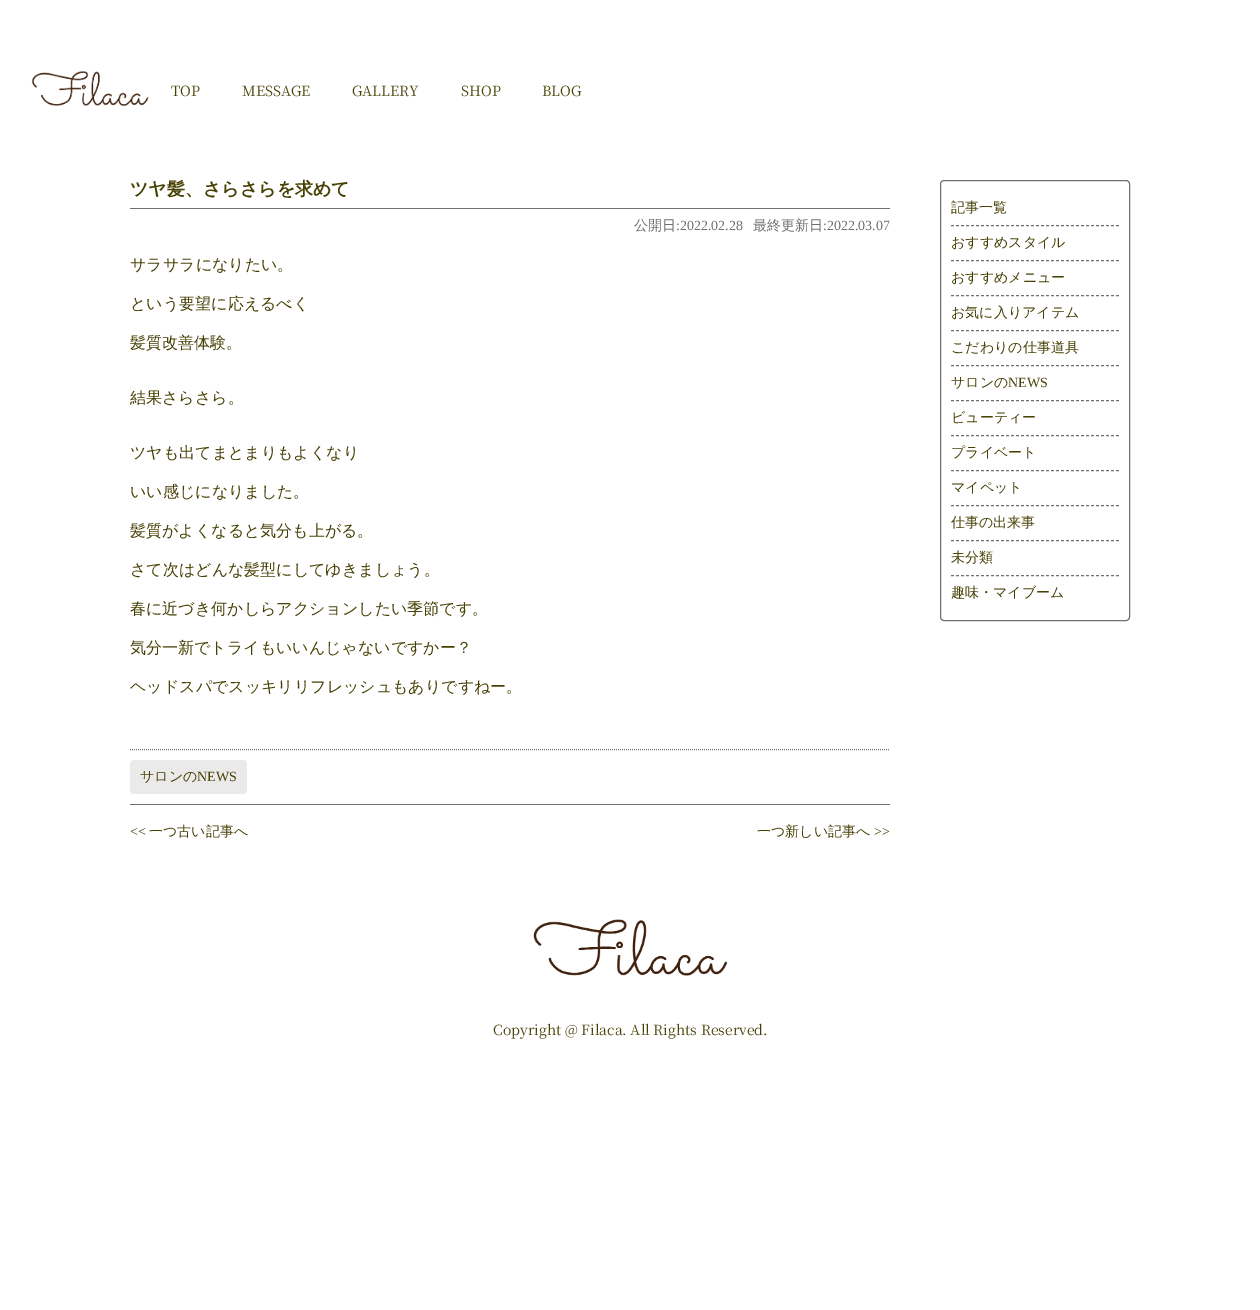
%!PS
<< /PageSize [1260 1310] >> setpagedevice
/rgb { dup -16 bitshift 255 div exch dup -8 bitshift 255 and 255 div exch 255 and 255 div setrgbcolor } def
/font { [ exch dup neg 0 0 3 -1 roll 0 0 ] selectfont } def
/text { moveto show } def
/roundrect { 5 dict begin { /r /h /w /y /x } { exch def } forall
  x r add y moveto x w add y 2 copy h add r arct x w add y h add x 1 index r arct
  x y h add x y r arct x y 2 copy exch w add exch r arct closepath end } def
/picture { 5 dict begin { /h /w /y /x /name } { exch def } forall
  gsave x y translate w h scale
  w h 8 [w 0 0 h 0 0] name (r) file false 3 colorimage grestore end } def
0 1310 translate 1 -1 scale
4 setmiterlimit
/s1 { /NotoSerifJP-ExtraLight 14 font 16#474004 rgb } def
/s2 { /WenQuanYiZenHei-Bold 18 font 16#474004 rgb } def
/s3 { /WenQuanYiZenHei-Medium 14 font 16#707070 rgb } def
/s4 { /LiberationSerif-Regular 14 font 16#707070 rgb } def
/s5 { /WenQuanYiZenHei-Medium 16 font 16#474004 rgb } def
/s6 { /WenQuanYiZenHei-Medium 14 font 16#474004 rgb } def
/s7 { /LiberationSerif-Regular 14 font 16#474004 rgb } def
16#FFFFFF rgb
0 0 1260 1310 rectfill
(pic1.raw) 31 71 118 36 picture
s1
(TOP) 171 96 text
(MESSAGE) 242 96 text
(GALLERY) 352 96 text
(SHOP) 461 96 text
(BLOG) 542 96 text
16#707070 rgb
130 208 760 1 rectfill
s2
(ツヤ髪、さらさらを求めて) 130 195 text
s3
(公開日) 634 230 text
s4
(:2022.02.28) 676 230 text
s3
(最終更新日) 753 230 text
s4
(:2022.03.07) 823 230 text
s5
(サラサラになりたい。) 130 270 text
(という要望に応えるべく) 130 309 text
(髪質改善体験。) 130 348 text
(結果さらさら。) 130 403 text
(ツヤも出てまとまりもよくなり) 130 458 text
(いい感じになりました。) 130 497 text
(髪質がよくなると気分も上がる。) 130 536 text
(さて次はどんな髪型にしてゆきましょう。) 130 575 text
(春に近づき何かしらアクションしたい季節です。) 130 614 text
(気分一新でトライもいいんじゃないですかー？) 130 653 text
(ヘッドスパでスッキリリフレッシュもありですねー。) 130 692 text
16#707070 rgb
[1 1] 0 setdash
130 749.5 moveto 890 749.5 lineto stroke
130 804 760 1 rectfill
16#EAEAEA rgb
130 760 117 34 4 roundrect fill
s6
(サロンの) 140 781 text
s7
(NEWS) 197 781 text
(<<) 130 836 text
s6
(一つ古い記事へ) 149 836 text
(一つ新しい記事へ) 757 836 text
s7
(>>) 874 836 text
16#707070 rgb
[] 0 setdash
940.5 180.5 189 440 3.5 roundrect stroke
[3 2] 0 setdash
951 225.5 moveto 1119 225.5 lineto stroke
s6
(記事一覧) 951 212 text
16#707070 rgb
951 260.5 moveto 1119 260.5 lineto stroke
s6
(おすすめスタイル) 951 247 text
16#707070 rgb
951 295.5 moveto 1119 295.5 lineto stroke
s6
(おすすめメニュー) 951 282 text
16#707070 rgb
951 330.5 moveto 1119 330.5 lineto stroke
s6
(お気に入りアイテム) 951 317 text
16#707070 rgb
951 365.5 moveto 1119 365.5 lineto stroke
s6
(こだわりの仕事道具) 951 352 text
16#707070 rgb
951 400.5 moveto 1119 400.5 lineto stroke
s6
(サロンの) 951 387 text
s7
(NEWS) 1008 387 text
16#707070 rgb
951 435.5 moveto 1119 435.5 lineto stroke
s6
(ビューティー) 951 422 text
16#707070 rgb
951 470.5 moveto 1119 470.5 lineto stroke
s6
(プライベート) 951 457 text
16#707070 rgb
951 505.5 moveto 1119 505.5 lineto stroke
s6
(マイペット) 951 492 text
16#707070 rgb
951 540.5 moveto 1119 540.5 lineto stroke
s6
(仕事の出来事) 951 527 text
16#707070 rgb
951 575.5 moveto 1119 575.5 lineto stroke
s6
(未分類) 951 562 text
(趣味・マイブーム) 951 597 text
(pic2.raw) 533 919 195 57 picture
s1
(Copyright @ Filaca. All Rights Reserved.) 493 1035 text
showpage
